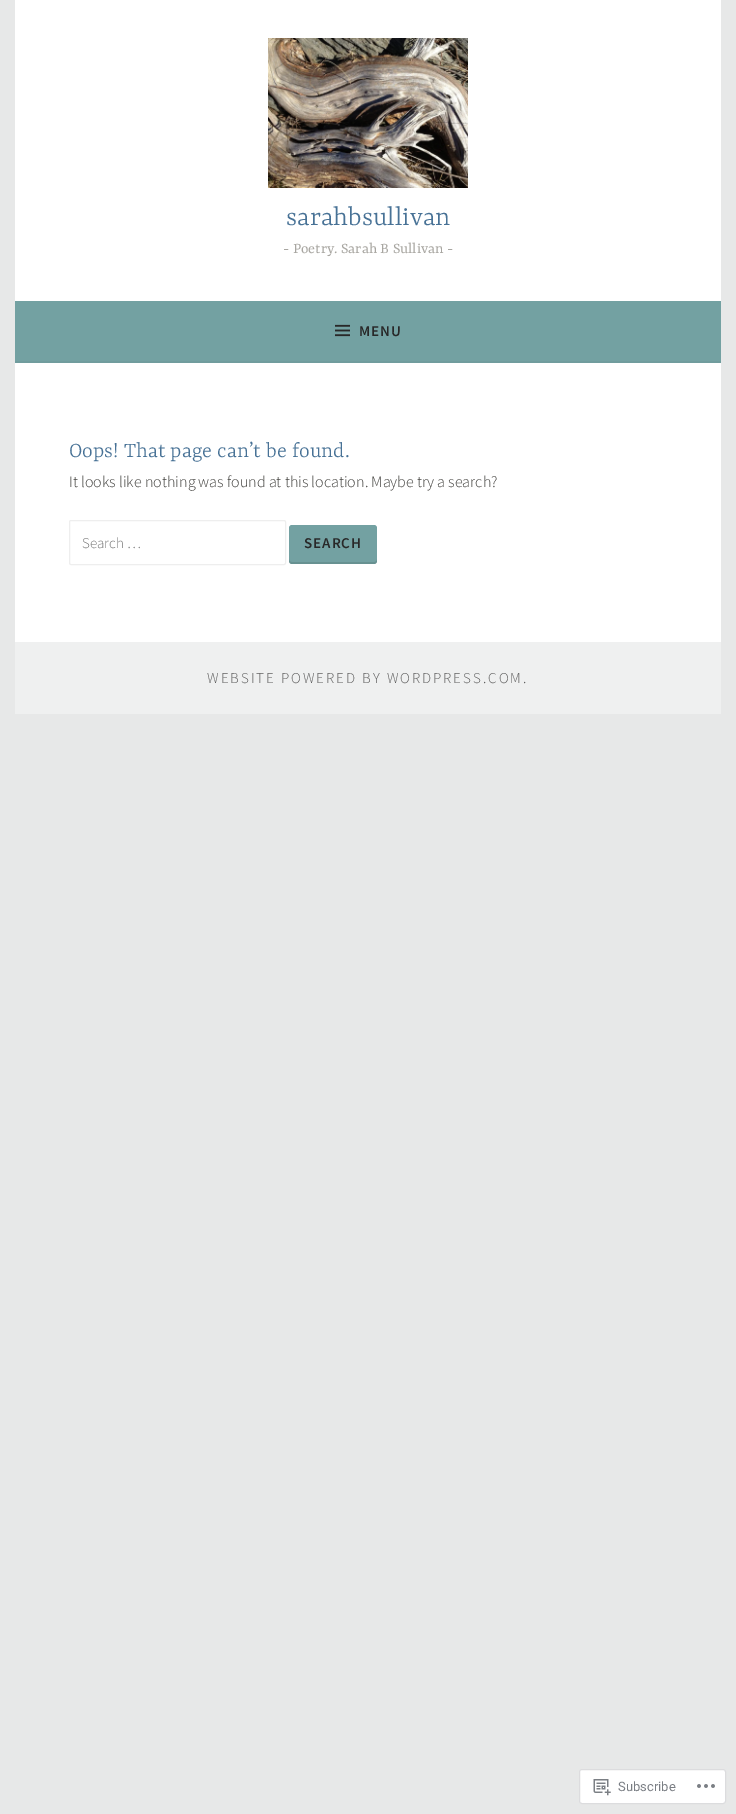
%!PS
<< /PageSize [736 1814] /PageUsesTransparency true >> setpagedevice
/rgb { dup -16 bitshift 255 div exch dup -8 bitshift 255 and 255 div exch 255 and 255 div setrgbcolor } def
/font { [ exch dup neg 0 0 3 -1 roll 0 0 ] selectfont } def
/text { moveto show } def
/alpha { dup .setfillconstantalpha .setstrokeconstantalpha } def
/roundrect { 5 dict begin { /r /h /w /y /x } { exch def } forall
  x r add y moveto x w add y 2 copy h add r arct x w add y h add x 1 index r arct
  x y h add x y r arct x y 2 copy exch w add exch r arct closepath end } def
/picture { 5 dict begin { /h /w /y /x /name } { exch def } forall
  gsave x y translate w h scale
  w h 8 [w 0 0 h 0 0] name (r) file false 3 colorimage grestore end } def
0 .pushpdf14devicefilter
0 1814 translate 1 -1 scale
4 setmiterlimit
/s1 { /Yrsa-Light 29 font 16#487296 rgb } def
/s2 { /Yrsa-Regular 16 font 16#A8A6A1 rgb } def
/s3 { /Yrsa-Light 23 font 16#487296 rgb } def
/s4 { /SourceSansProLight-Light 16 font 16#444340 rgb } def
/s5 { /SourceSansProLight-Light 15 font 16#757575 rgb } def
/s6 { /Roboto-Regular 13 font 16#7A7E84 rgb } def
16#E7E8E8 rgb
0 0 736 1814 rectfill
16#FFFFFF rgb
15 0 706 301 rectfill
(pic1.raw) 268 38 200 150 picture
s1
(sarahbsullivan) 286 225 text
s2
(- Poetry. Sarah B Sullivan -) 283 253 text
16#73A1A2 rgb
15 301 706 60 rectfill
16#709C9D rgb
15 361 706 2 rectfill
(pic2.raw) 335 324 15 13 picture
/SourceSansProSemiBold-SemiBold 15 font
16#282828 rgb
359 336 moveto 1 0 (MENU) ashow
16#FFFFFF rgb
15 363 706 279 rectfill
s3
(Oops! That page can’t be found.) 69 457 text
s4
(It looks like nothing was found at this location. Maybe try a search?) 69 487 text
16#EEEEEE rgb
69.5 520.5 216 44 1.5 roundrect stroke
s5
(Search …) 82 548 text
16#73A1A2 rgb
289 525 88 39 3 roundrect fill
0.1 alpha
16#000000 rgb
289 559 moveto 289 561 lineto 289 563 290 564 292 564 curveto 374 564 lineto 376 564 377 563 377 561 curveto 377 559 lineto 377 561 376 562 374 562 curveto 292 562 lineto 290 562 289 561 289 559 curveto closepath fill
/SourceSansProSemiBold-SemiBold 15 font
1 alpha
16#282828 rgb
304 548 moveto 1 0 (SEARCH) ashow
16#EFF0F0 rgb
15 642 706 72 rectfill
/SourceSansProLight-Light 15 font
16#606060 rgb
207 683 moveto 2 0 (WEBSITE POWERED BY WORDPRESS.COM.) ashow
16#FFFFFF rgb
579.5 1769.5 146 34 2.5 roundrect gsave fill grestore
16#DCDCDE rgb
stroke
(pic3.raw) 593 1779 18 17 picture
s6
(Subscribe) 618 1791 text
(pic4.raw) 697 1784 18 4 picture
.poppdf14devicefilter showpage
